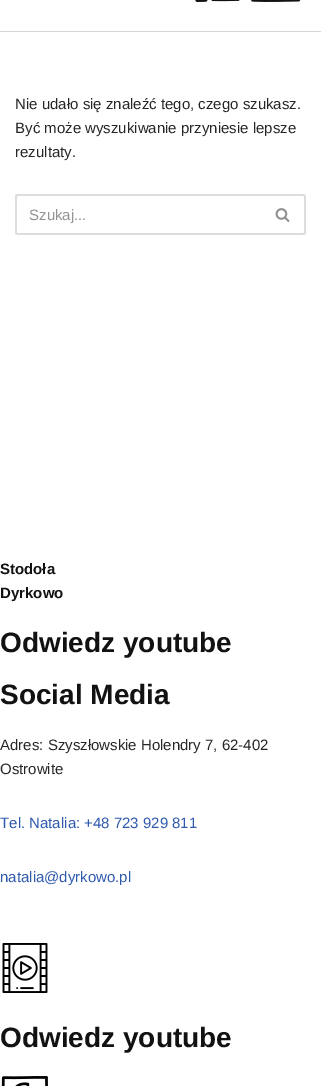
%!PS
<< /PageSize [321 1086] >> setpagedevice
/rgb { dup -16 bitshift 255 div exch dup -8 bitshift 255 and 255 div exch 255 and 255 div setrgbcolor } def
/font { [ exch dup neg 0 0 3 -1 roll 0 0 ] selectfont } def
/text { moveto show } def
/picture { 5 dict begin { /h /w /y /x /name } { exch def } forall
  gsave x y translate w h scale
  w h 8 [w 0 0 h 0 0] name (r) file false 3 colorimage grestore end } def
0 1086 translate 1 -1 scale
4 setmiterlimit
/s1 { /LiberationSans-Regular 15 font 16#272626 rgb } def
/s2 { /LiberationSans-Regular 15 font 16#939393 rgb } def
/s3 { /LiberationSans-Bold 15 font 16#121212 rgb } def
/s4 { /LiberationSans-Bold 28 font 16#121212 rgb } def
/s5 { /LiberationSans-Regular 15 font 16#2F5AAE rgb } def
16#FFFFFF rgb
0 0 321 1086 rectfill
16#D6D6D6 rgb
0 31 321 1 rectfill
(pic1.raw) 195 0 45 2 picture
(pic2.raw) 251 0 50 2 picture
s1
(Nie udało się znaleźć tego, czego szukasz.) 15 109 text
(Być może wyszukiwanie przyniesie lepsze) 15 133 text
(rezultaty.) 15 157 text
16#DDDDDD rgb
18 194 moveto 261 194 lineto 261 235 lineto 18 235 lineto 16 235 15 234 15 232 curveto 15 197 lineto 15 195 16 194 18 194 curveto closepath 18 196 moveto 261 196 lineto 261 233 lineto 18 233 lineto 17 233 lineto 17 197 lineto closepath eofill
s2
(Szukaj...) 29 220 text
16#DDDDDD rgb
261 194 moveto 303 194 lineto 305 194 306 195 306 197 curveto 306 232 lineto 306 234 305 235 303 235 curveto 261 235 lineto closepath 261 196 moveto 303 196 lineto 304 196 304 196 304 197 curveto 304 232 lineto 304 233 304 233 303 233 curveto 261 233 lineto closepath eofill
(pic3.raw) 275 208 15 14 picture
s3
(Stodoła) 0 574 text
(Dyrkowo) 0 598 text
s4
(Odwiedz youtube) 0 652 text
(Social Media) 0 704 text
s1
(Adres: Szyszłowskie Holendry 7, 62-402) 0 750 text
(Ostrowite) 0 774 text
s5
(Tel. Natalia: +48 723 929 811) 0 828 text
(natalia@dyrkowo.pl) 0 882 text
(pic4.raw) 2 943 46 50 picture
s4
(Odwiedz youtube) 0 1047 text
(pic5.raw) 1 1076 47 10 picture
showpage
